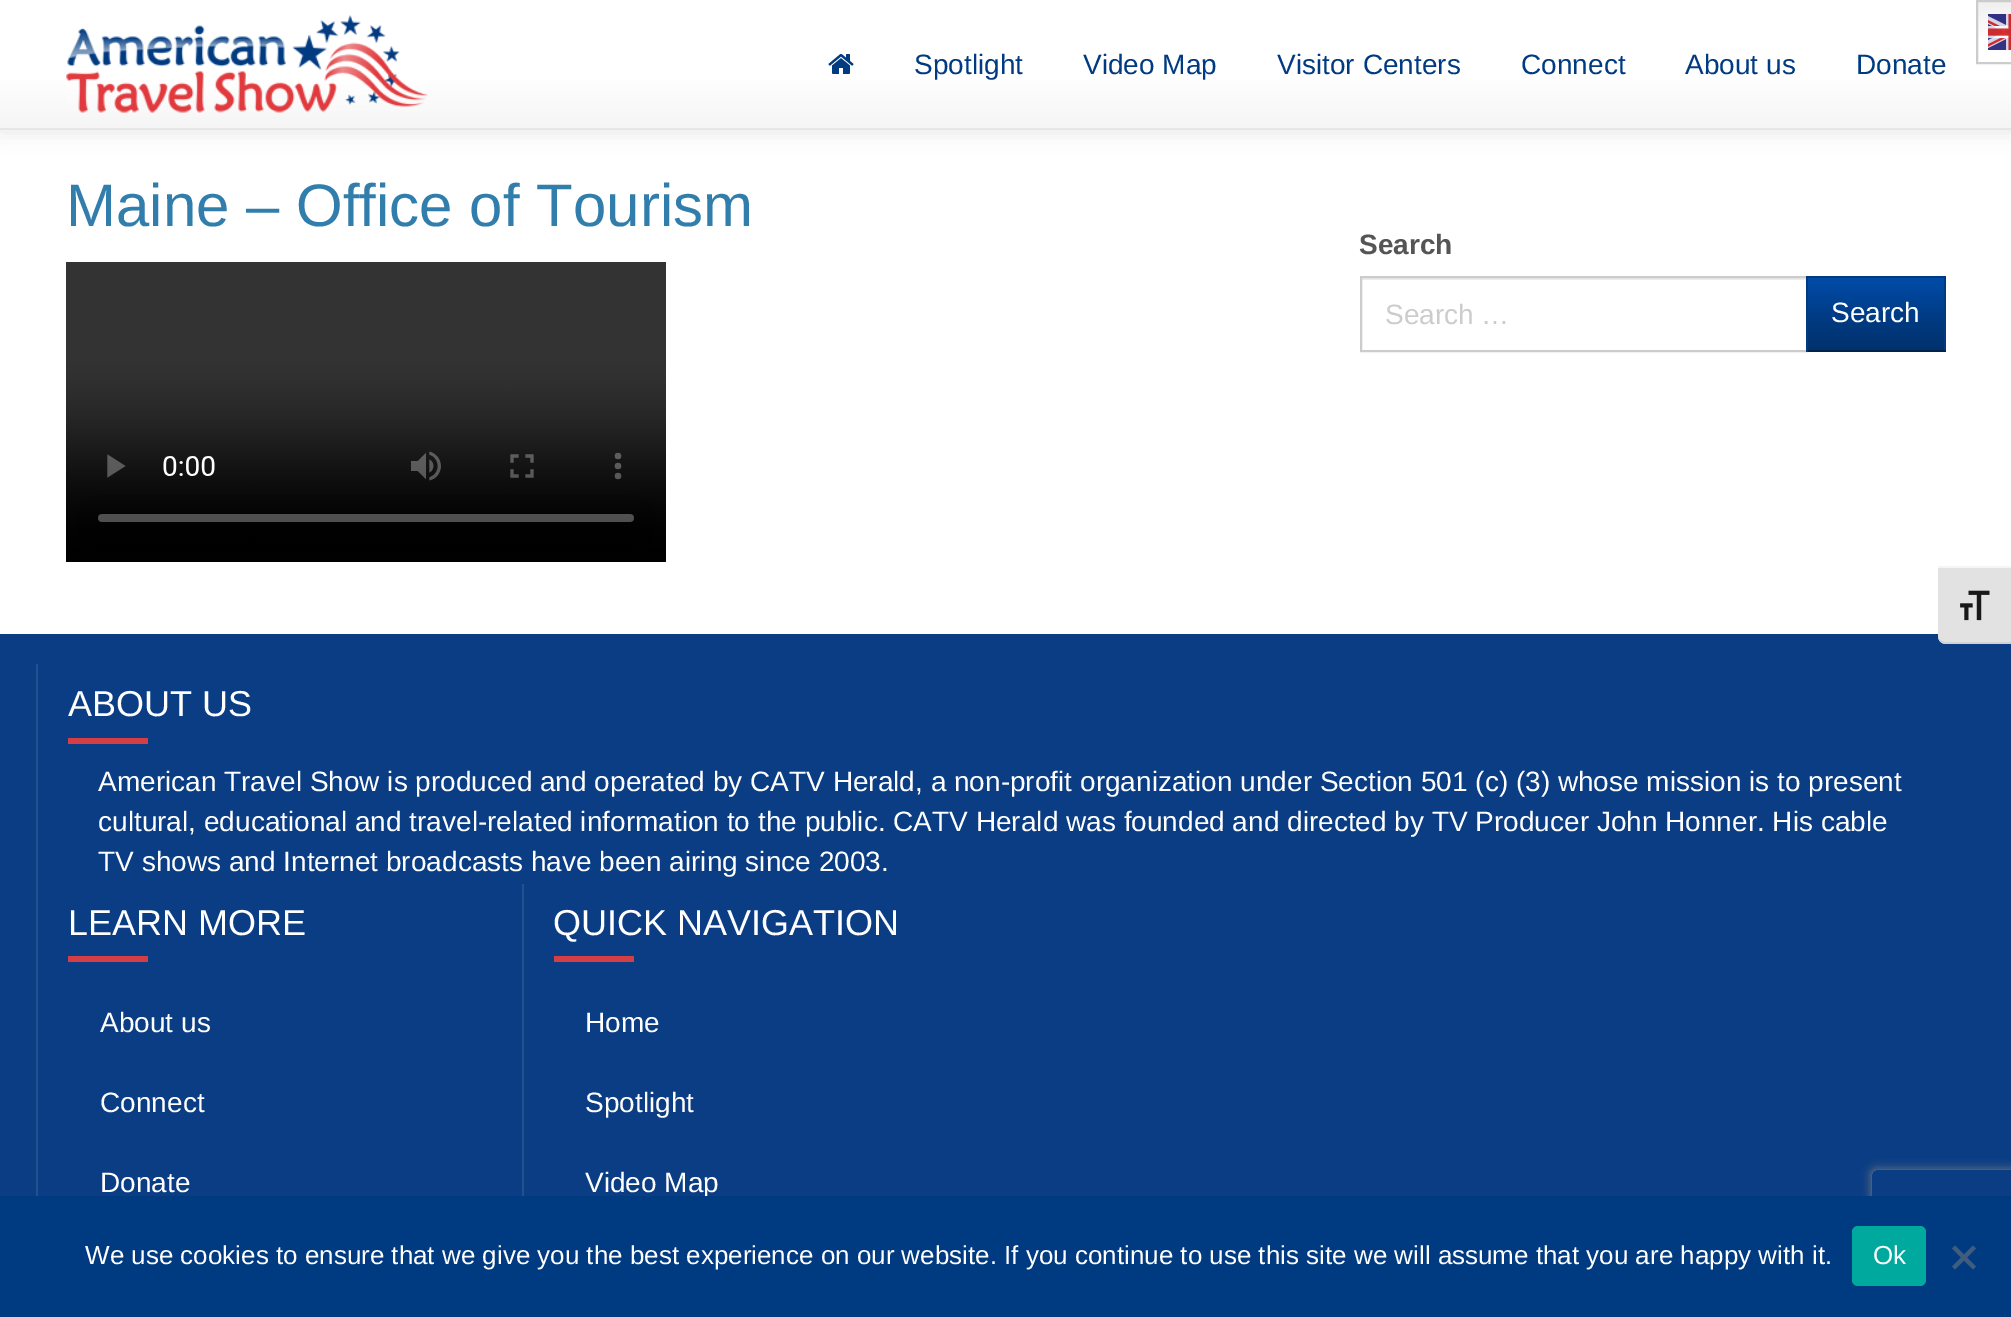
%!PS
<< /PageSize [2011 1317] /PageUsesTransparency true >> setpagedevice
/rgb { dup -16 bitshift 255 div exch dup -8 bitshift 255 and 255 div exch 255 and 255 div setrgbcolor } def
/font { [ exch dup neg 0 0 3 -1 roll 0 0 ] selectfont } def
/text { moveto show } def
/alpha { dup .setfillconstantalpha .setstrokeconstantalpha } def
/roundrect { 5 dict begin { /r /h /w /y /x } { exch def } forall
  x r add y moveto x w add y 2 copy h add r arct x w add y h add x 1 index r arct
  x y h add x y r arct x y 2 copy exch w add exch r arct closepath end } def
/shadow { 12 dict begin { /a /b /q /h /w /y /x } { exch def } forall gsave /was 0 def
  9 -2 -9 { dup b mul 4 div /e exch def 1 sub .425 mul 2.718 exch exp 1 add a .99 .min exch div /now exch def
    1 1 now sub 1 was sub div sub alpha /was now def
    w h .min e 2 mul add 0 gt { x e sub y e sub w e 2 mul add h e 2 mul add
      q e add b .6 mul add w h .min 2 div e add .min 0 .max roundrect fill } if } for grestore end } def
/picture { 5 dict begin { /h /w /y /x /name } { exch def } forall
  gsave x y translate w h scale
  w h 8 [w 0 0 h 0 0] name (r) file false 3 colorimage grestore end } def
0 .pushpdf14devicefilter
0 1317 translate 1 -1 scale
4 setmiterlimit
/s1 { /LiberationSans-Regular 28 font 16#003A80 rgb } def
/s2 { /LiberationSans-Regular 60 font 16#317EAC rgb } def
/s3 { /LiberationSans-Bold 28 font 16#555555 rgb } def
/s4 { /LiberationSans-Regular 28 font 16#CCCCCC rgb } def
/s5 { /LiberationSans-Regular 28 font 16#FFFFFF rgb } def
/s6 { /LiberationSans-Regular 36 font 16#FFFFFF rgb } def
/s7 { /LiberationSans-Regular 26 font 16#FFFFFF rgb } def
16#FFFFFF rgb
0 0 2011 1317 rectfill
16#000000 rgb
0 2 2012 130 0 10 0.1 shadow
gsave 0 0 moveto 2011 0 lineto 2011 128 lineto 0 128 lineto closepath clip newpath
<< /ShadingType 2 /ColorSpace /DeviceRGB /Coords [1006 0 1006 128] /Extend [true true] /Function << /FunctionType 3 /Domain [0 1] /Functions [<< /FunctionType 2 /Domain [0 1] /C0 [1 1 1] /C1 [1 1 1] /N 1 >> << /FunctionType 2 /Domain [0 1] /C0 [1 1 1] /C1 [0.961 0.961 0.961] /N 1 >>] /Bounds [0.6] /Encode [0 1 0 1] >> >> shfill grestore
16#E6E6E6 rgb
0 128 2011 2 rectfill
(pic1.raw) 66 15 362 98 picture
(pic2.raw) 828 54 26 20 picture
s1
(Spotlight) 914 74 text
(Video Map) 1083 74 text
(Visitor Centers) 1277 74 text
(Connect) 1521 74 text
(About us) 1685 74 text
(Donate) 1856 74 text
gsave 1978 2 moveto 2011 2 lineto 2011 38 lineto 1978 38 lineto closepath clip newpath
<< /ShadingType 2 /ColorSpace /DeviceRGB /Coords [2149 0 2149 64] /Extend [true true] /Function << /FunctionType 3 /Domain [0 1] /Functions [<< /FunctionType 2 /Domain [0 1] /C0 [0.937 0.937 0.937] /C1 [1 1 1] /N 1 >> << /FunctionType 2 /Domain [0 1] /C0 [1 1 1] /C1 [1 1 1] /N 1 >>] /Bounds [0.7] /Encode [0 1 0 1] >> >> shfill grestore
16#CCCCCC rgb
2 setlinewidth
1977 1 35 62 rectstroke
(pic3.raw) 1988 14 23 36 picture
s2
(Maine – Office of Tourism) 66 226 text
(pic4.raw) 66 262 600 300 picture
s3
(Search) 1359 254 text
16#ECECEC rgb
1362 278 444 2 rectfill
16#CCCCCC rgb
1361 277 446 74 rectstroke
s4
(Search …) 1385 324 text
16#003A80 rgb
1808 276 138 74 rectfill
gsave 1808 278 moveto 1944 278 lineto 1944 350 lineto 1808 350 lineto closepath clip newpath
<< /ShadingType 2 /ColorSpace /DeviceRGB /Coords [1876 278 1876 350] /Extend [true true] /Function << /FunctionType 3 /Domain [0 1] /Functions [<< /FunctionType 2 /Domain [0 1] /C0 [0 0.298 0.663] /C1 [0 0.227 0.502] /N 1 >> << /FunctionType 2 /Domain [0 1] /C0 [0 0.227 0.502] /C1 [0 0.192 0.424] /N 1 >>] /Bounds [0.6] /Encode [0 1 0 1] >> >> shfill grestore
16#00234D rgb
1806 350 140 2 rectfill
16#003A80 rgb
1806 276 2 76 rectfill
s5
(Search) 1831 322 text
16#0A3D83 rgb
0 634 2011 562 rectfill
16#23508F rgb
36 664 2 532 rectfill
s6
(ABOUT US) 68 716 text
16#D63E45 rgb
68 738 80 6 rectfill
s5
(American Travel Show is produced and operated by CATV Herald, a non-profit organization under Section 501 \(c\) \(3\) whose mission is to present) 98 791 text
(cultural, educational and travel-related information to the public. CATV Herald was founded and directed by TV Producer John Honner. His cable) 98 831 text
(TV shows and Internet broadcasts have been airing since 2003.) 98 871 text
s6
(LEARN MORE) 68 935 text
16#D63E45 rgb
68 956 80 6 rectfill
s5
(About us) 100 1032 text
(Connect) 100 1112 text
(Donate) 100 1192 text
16#23508F rgb
522 884 2 312 rectfill
s6
(QUICK NAVIGATION) 553 935 text
16#D63E45 rgb
554 956 80 6 rectfill
s5
(Home) 585 1032 text
(Spotlight) 585 1112 text
(Video Map) 585 1192 text
16#E2E2E2 rgb
1938 566 moveto 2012 566 lineto 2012 644 lineto 1946 644 lineto 1941.5 644 1938 640.5 1938 636 curveto closepath fill
16#F5F5F5 rgb
1938 566 73 2 rectfill
16#D2D2D2 rgb
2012 644 moveto 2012 642 lineto 1946 642 lineto 1942 642 1938 639 1938 636 curveto 1938 640 1942 644 1946 644 curveto closepath fill
(pic5.raw) 1960 590 30 31 picture
gsave
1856 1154 moveto 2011 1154 lineto 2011 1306 lineto 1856 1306 lineto closepath 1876 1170 moveto 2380 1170 lineto 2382 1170 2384 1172 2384 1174 curveto 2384 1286 lineto 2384 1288 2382 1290 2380 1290 curveto 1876 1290 lineto 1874 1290 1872 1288 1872 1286 curveto 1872 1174 lineto 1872 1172 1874 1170 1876 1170 curveto closepath eoclip newpath
16#808080 rgb
1872 1170 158 120 4 5 1 shadow
grestore
16#003A80 rgb
0 1196 2011 121 rectfill
s7
(We use cookies to ensure that we give you the best experience on our website. If you continue to use this site we will assume that you are happy with it.) 85 1264 text
16#00A99D rgb
1852 1226 74 60 6 roundrect fill
s7
(Ok) 1873 1264 text
16#405D80 rgb
1973 1245.5 moveto 1976 1248.5 lineto 1955 1269.5 lineto 1952 1266.5 lineto closepath fill
1952 1248.5 moveto 1955 1245.5 lineto 1976 1266.5 lineto 1973 1269.5 lineto closepath fill
.poppdf14devicefilter showpage
